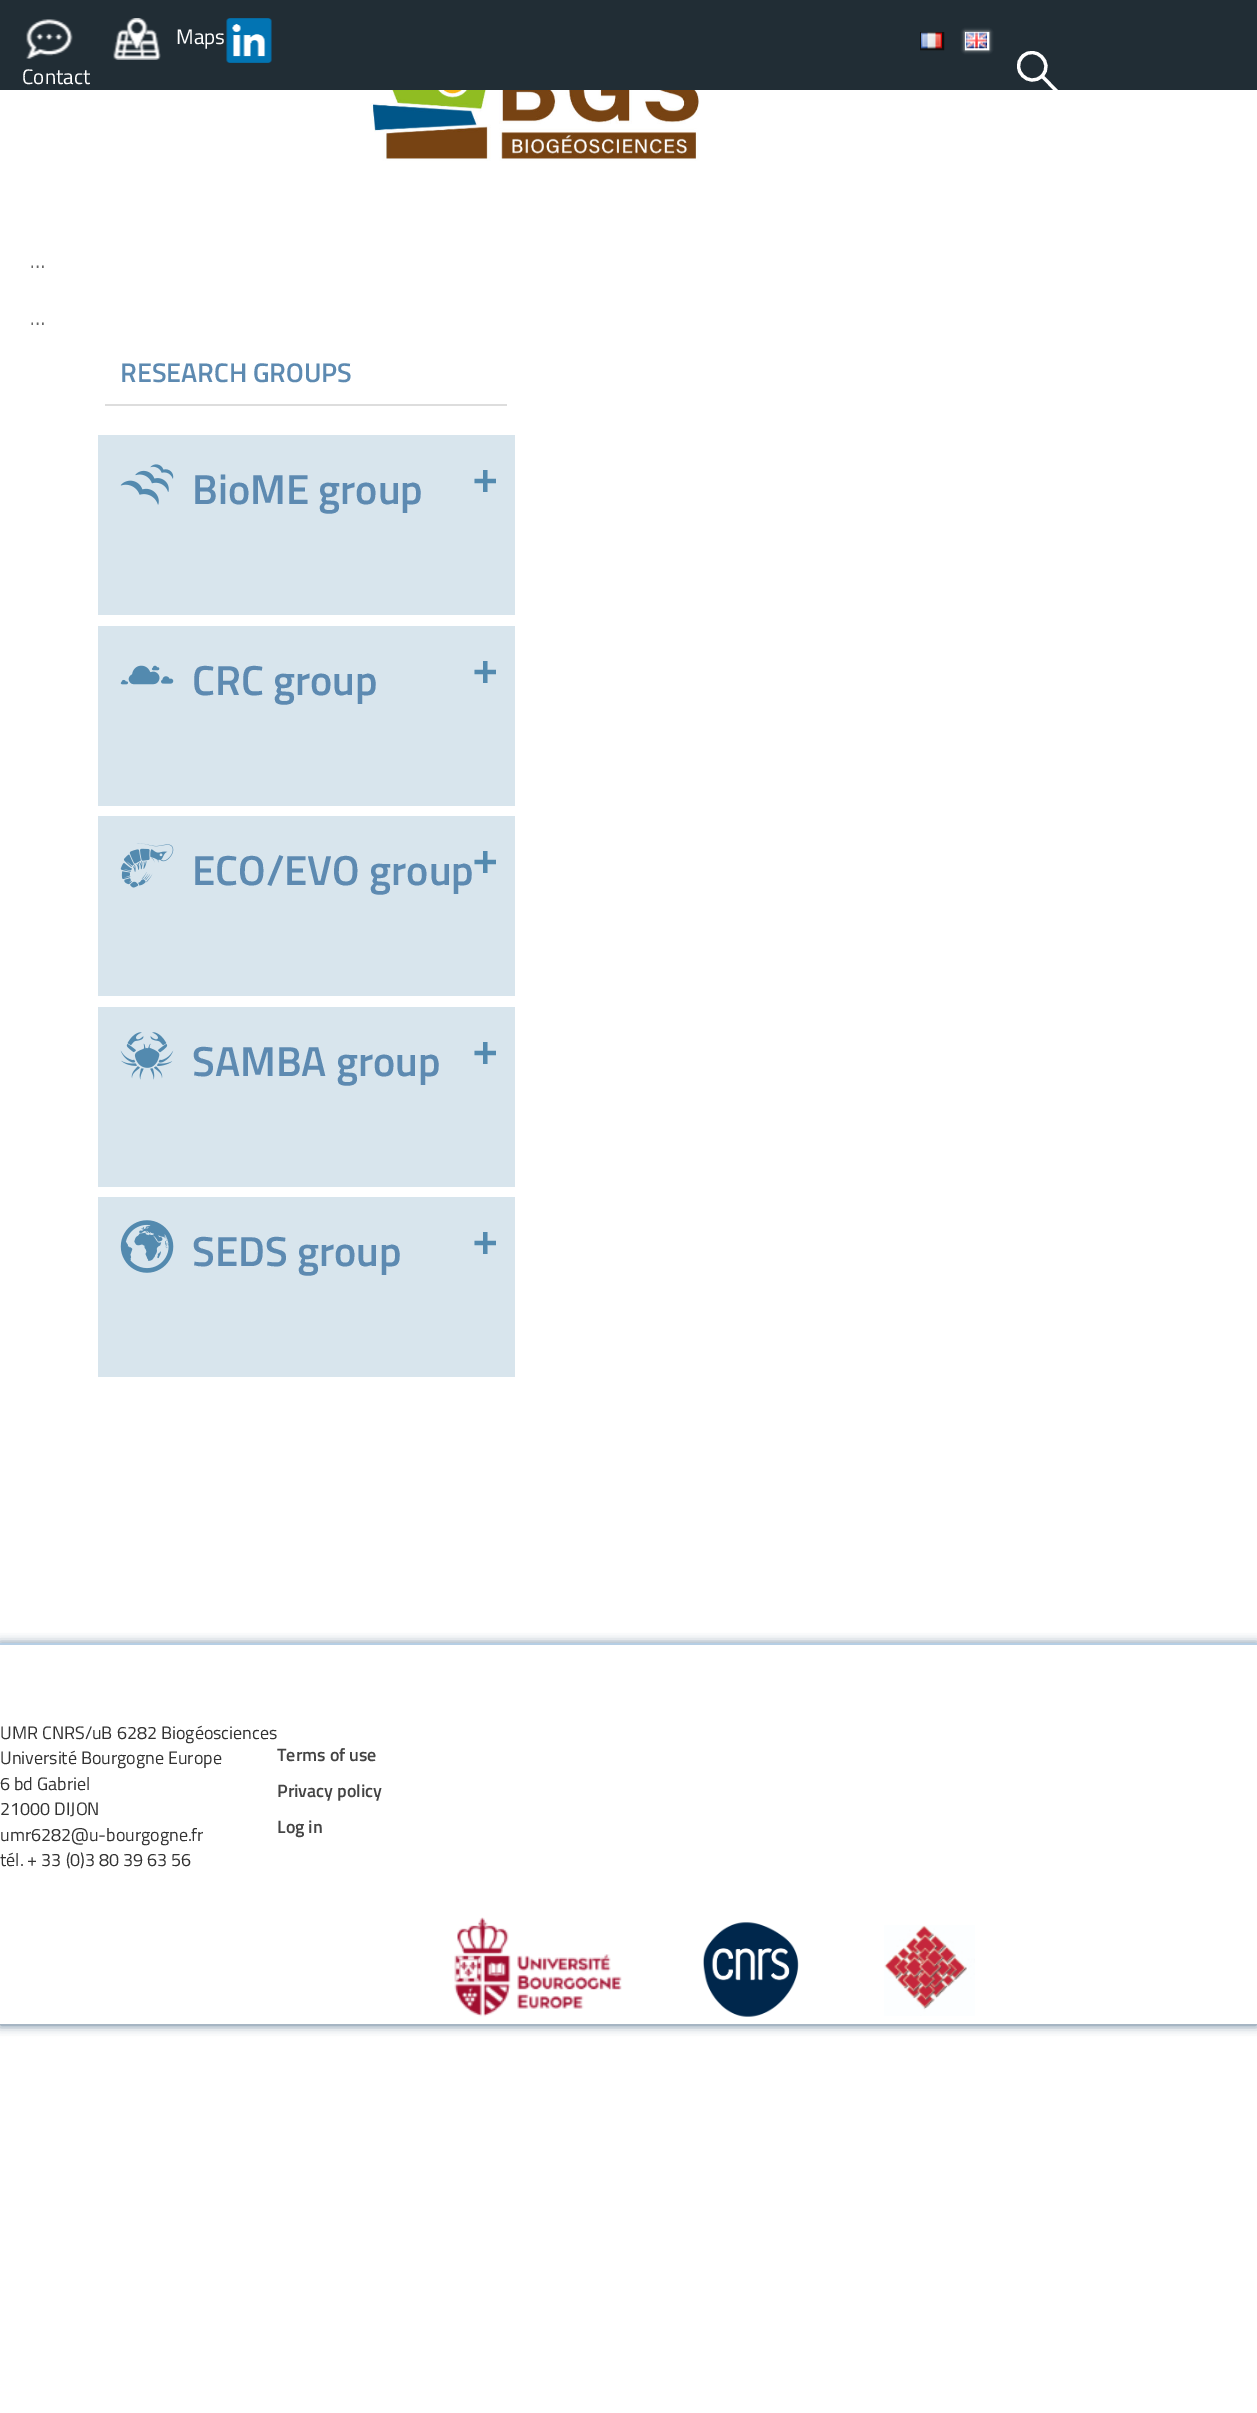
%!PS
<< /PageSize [1257 2413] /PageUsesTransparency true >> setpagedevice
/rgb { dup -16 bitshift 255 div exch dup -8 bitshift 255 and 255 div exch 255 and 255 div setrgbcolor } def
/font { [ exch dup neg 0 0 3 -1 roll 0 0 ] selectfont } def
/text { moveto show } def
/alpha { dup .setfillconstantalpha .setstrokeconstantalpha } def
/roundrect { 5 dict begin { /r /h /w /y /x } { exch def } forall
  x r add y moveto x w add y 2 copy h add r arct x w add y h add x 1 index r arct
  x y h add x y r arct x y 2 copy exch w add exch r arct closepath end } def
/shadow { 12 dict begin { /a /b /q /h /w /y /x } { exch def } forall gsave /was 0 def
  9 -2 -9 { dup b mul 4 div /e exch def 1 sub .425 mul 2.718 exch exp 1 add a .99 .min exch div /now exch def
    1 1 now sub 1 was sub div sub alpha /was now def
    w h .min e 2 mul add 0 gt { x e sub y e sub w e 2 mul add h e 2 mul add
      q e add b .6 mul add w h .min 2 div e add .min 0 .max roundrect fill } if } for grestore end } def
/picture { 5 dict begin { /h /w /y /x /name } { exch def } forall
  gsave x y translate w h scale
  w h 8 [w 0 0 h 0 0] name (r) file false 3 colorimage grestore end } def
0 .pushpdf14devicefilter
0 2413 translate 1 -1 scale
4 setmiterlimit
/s1 { /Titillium-Regular 21 font 16#FFFFFF rgb } def
/s2 { /Titillium-Regular 21 font 16#666666 rgb } def
/s3 { /Titillium-SemiBold 27 font 16#5D8AB1 rgb } def
/s4 { /Titillium-SemiBold 42 font 16#5D8AB1 rgb } def
/s5 { /Titillium-Bold 45 font 16#538AAF rgb } def
/s6 { /Titillium-Regular 18 font 16#333333 rgb } def
/s7 { /Titillium-SemiBold 18 font 16#444444 rgb } def
16#FFFFFF rgb
0 0 1257 2413 rectfill
16#212D35 rgb
0 0 1257 90 rectfill
(pic1.raw) 113 18 48 42 picture
s1
(Maps) 176 44 text
(pic2.raw) 226 18 46 45 picture
(pic3.raw) 26 19 47 40 picture
(Contact) 22 84 text
16#111111 rgb
2 setlinewidth
921 33 22 16 rectstroke
(pic4.raw) 921 32 21 17 picture
16#FFFFFF rgb
965 32 24 18 0 2 0.8 shadow
966 33 22 16 rectstroke
(pic5.raw) 966 32 21 17 picture
gsave
1017 51 41 42 rectclip
3.2 setlinewidth
1 setlinecap
1042 76 moveto 1054.5 63 1035 44 1022.5 56.5 curveto 1010 69.5 1029 88.5 1042 76 curveto 1057 91.5 lineto stroke
grestore
(pic6.raw) 370 90 330 71 picture
s2
(…) 30 268 text
(…) 30 325 text
16#DDDDDD rgb
105 404 402 2 rectfill
s3
(RESEARCH GROUPS) 120 382 text
16#D8E5ED rgb
98 435 417 180 rectfill
(pic7.raw) 120 464 54 41 picture
s4
(BioME group) 192 504 text
s5
(+) 472 493 text
16#D8E5ED rgb
98 626 417 180 rectfill
(pic8.raw) 120 665 54 20 picture
s4
(CRC group) 192 695 text
s5
(+) 472 684 text
16#D8E5ED rgb
98 816 417 180 rectfill
(pic9.raw) 120 843 54 45 picture
s4
(ECO/EVO group) 192 885 text
s5
(+) 472 874 text
16#D8E5ED rgb
98 1007 417 180 rectfill
(pic10.raw) 120 1032 54 48 picture
s4
(SAMBA group) 192 1076 text
s5
(+) 472 1065 text
16#D8E5ED rgb
98 1197 417 180 rectfill
(pic11.raw) 120 1220 54 53 picture
s4
(SEDS group) 192 1266 text
s5
(+) 472 1255 text
16#4A6985 rgb
0 1644 1257 381 0 5 1 shadow
16#FFFFFF rgb
0 1645 1257 379 rectfill
16#B6CEE4 rgb
0 1643 1257 2 rectfill
s6
(UMR CNRS/uB 6282 Biogéosciences) 0 1739 text
(Université Bourgogne Europe) 0 1764 text
(6 bd Gabriel) 0 1790 text
(21000 DIJON) 0 1815 text
(umr6282@u-bourgogne.fr) 0 1841 text
(tél. + 33 \(0\)3 80 39 63 56) 0 1866 text
s7
(Terms of use) 277 1761 text
(Privacy policy) 277 1797 text
(Log in) 277 1833 text
(pic12.raw) 454 1917 168 100 picture
(pic13.raw) 703 1922 96 95 picture
(pic14.raw) 884 1925 91 91 picture
.poppdf14devicefilter showpage
